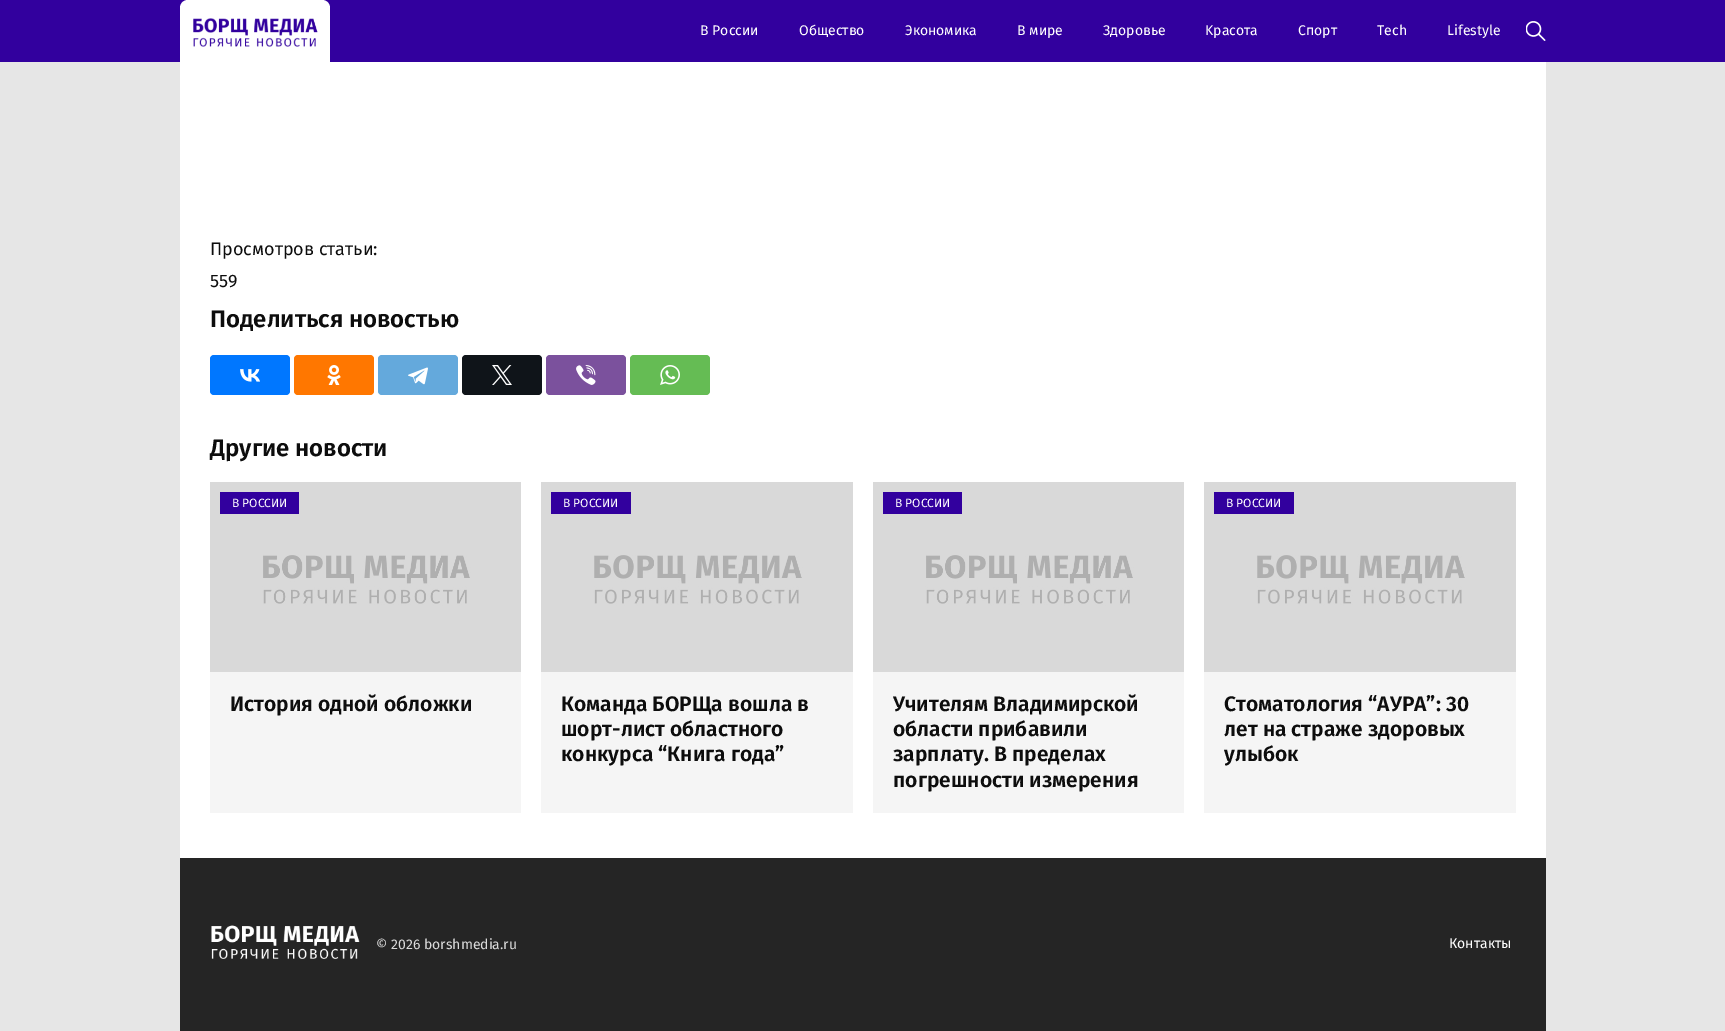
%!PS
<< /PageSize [1725 1031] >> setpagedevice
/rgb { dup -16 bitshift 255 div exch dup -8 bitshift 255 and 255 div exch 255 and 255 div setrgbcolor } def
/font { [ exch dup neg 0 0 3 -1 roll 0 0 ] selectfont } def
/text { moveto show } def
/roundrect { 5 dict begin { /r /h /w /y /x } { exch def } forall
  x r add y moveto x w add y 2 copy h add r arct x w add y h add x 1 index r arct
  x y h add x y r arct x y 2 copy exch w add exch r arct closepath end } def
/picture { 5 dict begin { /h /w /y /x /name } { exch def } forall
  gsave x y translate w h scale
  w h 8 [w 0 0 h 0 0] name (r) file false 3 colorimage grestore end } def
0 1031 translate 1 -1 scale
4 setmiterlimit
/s1 { /FiraSans-Regular 14 font 16#FFFFFF rgb } def
/s2 { /FiraSans-Regular 18 font 16#0D0D0D rgb } def
/s3 { /FiraSans-SemiBold 24 font 16#0D0D0D rgb } def
/s4 { /FiraSans-Regular 12 font 16#FFFFFF rgb } def
/s5 { /FiraSans-SemiBold 21 font 16#0D0D0D rgb } def
/s6 { /FiraSans-Regular 14 font 16#DBDBDB rgb } def
16#E6E6E6 rgb
0 0 1725 1031 rectfill
16#32009E rgb
0 0 1725 62 rectfill
16#FFFFFF rgb
188 0 moveto 322 0 lineto 326.5 0 330 3.5 330 8 curveto 330 62 lineto 180 62 lineto 180 8 lineto 180 3.5 183.5 0 188 0 curveto closepath fill
(pic1.raw) 193 18 125 29 picture
s1
(В России) 700 35 text
(Oбщество) 799 35 text
(Экономика) 905 35 text
(В мире) 1017 35 text
(Здоровье) 1103 35 text
(Kрасота) 1205 35 text
(Спорт) 1298 35 text
(Tech) 1377 35 text
(Lifestyle) 1447 35 text
(pic2.raw) 1526 21 20 20 picture
180 62 1366 796 rectfill
s2
(Просмотров статьи:) 210 255 text
(559) 210 287 text
s3
(Поделиться новостью) 210 327 text
16#0077FF rgb
210 355 80 40 4 roundrect fill
(pic3.raw) 240 369 20 13 picture
16#FF7700 rgb
294 355 80 40 4 roundrect fill
(pic4.raw) 327 365 14 20 picture
16#64A9DC rgb
378 355 80 40 4 roundrect fill
(pic5.raw) 408 367 20 18 picture
16#0F1419 rgb
462 355 80 40 4 roundrect fill
(pic6.raw) 492 365 20 20 picture
16#7B519D rgb
546 355 80 40 4 roundrect fill
(pic7.raw) 576 365 20 20 picture
16#65BC54 rgb
630 355 80 40 4 roundrect fill
(pic8.raw) 660 365 20 20 picture
s3
(Другие новости) 210 456 text
(pic9.raw) 210 482 311 190 picture
16#F5F5F5 rgb
210 672 311 141 rectfill
16#32009E rgb
220 492 79 22 rectfill
s4
(В РОССИИ) 232 507 text
s5
(История одной обложки) 230 711 text
(pic10.raw) 541 482 312 190 picture
16#F5F5F5 rgb
541 672 312 141 rectfill
16#32009E rgb
551 492 80 22 rectfill
s4
(В РОССИИ) 563 507 text
s5
(Команда БОРЩа вошла в) 561 711 text
(шорт-лист областного) 561 736 text
(конкурса “Книга года”) 561 761 text
(pic9.raw) 873 482 311 190 picture
16#F5F5F5 rgb
873 672 311 141 rectfill
16#32009E rgb
883 492 79 22 rectfill
s4
(В РОССИИ) 895 507 text
s5
(Учителям Владимирской) 893 711 text
(области прибавили) 893 736 text
(зарплату. В пределах) 893 761 text
(погрешности измерения) 893 787 text
(pic11.raw) 1204 482 312 190 picture
16#F5F5F5 rgb
1204 672 312 141 rectfill
16#32009E rgb
1214 492 80 22 rectfill
s4
(В РОССИИ) 1226 507 text
s5
(Стоматология “АУРА”: 30) 1224 711 text
(лет на страже здоровых) 1224 736 text
(улыбок) 1224 761 text
16#252525 rgb
180 858 1366 173 rectfill
(pic12.raw) 211 925 149 34 picture
s6
(© 2026 borshmedia.ru) 376 949 text
s1
(Контакты) 1449 948 text
showpage
